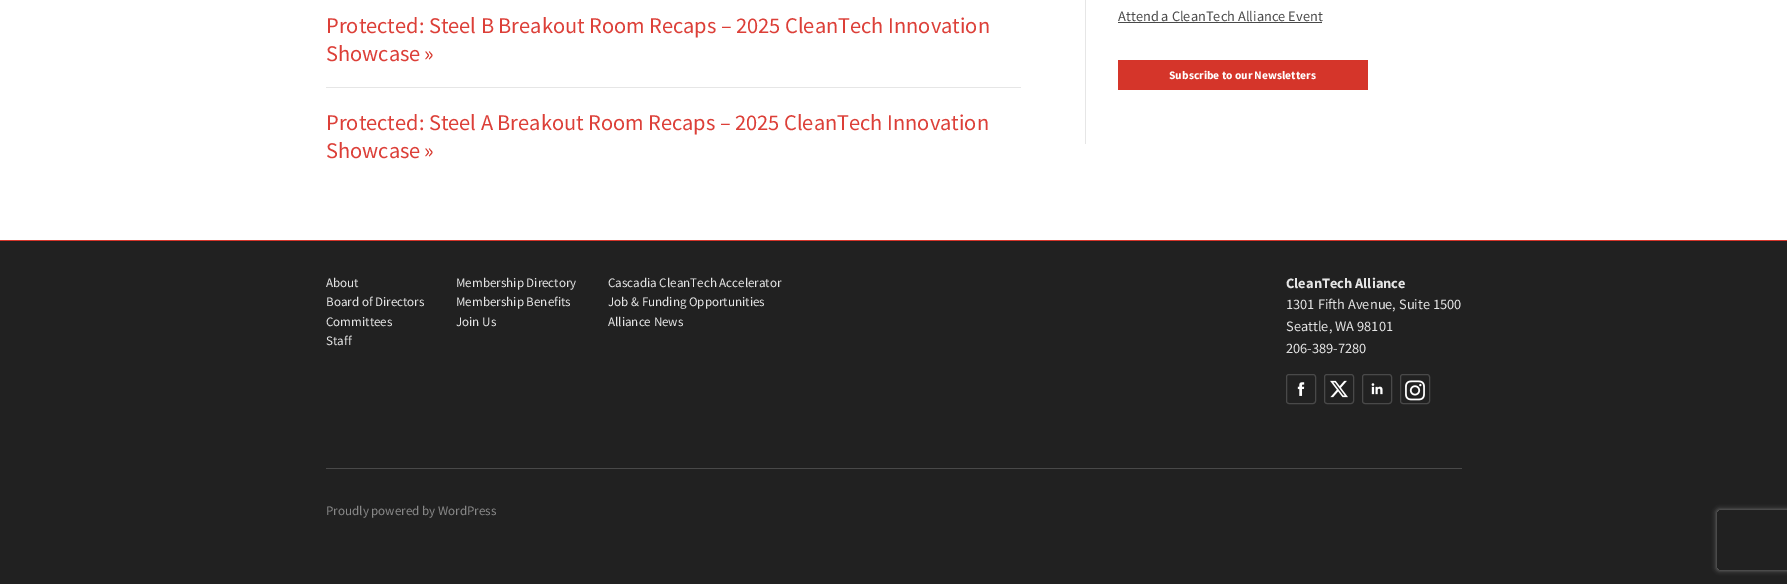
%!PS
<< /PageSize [1787 584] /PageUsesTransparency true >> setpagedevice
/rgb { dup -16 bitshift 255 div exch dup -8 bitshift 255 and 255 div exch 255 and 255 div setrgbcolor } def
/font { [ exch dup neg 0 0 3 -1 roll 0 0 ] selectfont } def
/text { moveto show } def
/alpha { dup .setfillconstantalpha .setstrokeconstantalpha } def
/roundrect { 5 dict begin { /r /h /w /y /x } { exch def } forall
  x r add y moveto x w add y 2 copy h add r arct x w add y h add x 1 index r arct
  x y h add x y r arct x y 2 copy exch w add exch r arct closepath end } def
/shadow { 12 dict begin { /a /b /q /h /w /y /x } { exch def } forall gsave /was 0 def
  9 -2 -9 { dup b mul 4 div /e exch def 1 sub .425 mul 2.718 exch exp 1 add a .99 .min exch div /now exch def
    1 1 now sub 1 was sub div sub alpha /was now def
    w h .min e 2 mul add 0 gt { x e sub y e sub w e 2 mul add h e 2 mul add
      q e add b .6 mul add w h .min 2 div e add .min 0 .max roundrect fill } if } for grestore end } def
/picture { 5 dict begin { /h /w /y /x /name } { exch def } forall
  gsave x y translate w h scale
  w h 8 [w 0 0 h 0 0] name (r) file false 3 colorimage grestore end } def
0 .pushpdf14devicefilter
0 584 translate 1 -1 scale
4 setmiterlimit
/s1 { /SourceSansPro-Regular 22.4 font 16#DC3F38 rgb } def
/s2 { /SourceSansPro-Regular 22.4 font 16#D5352A rgb } def
/s3 { /SourceSansPro-Regular 14.4 font 16#494949 rgb } def
/s4 { /SourceSansPro-Bold 11.5 font 16#FFFFFF rgb } def
/s5 { /SourceSansPro-Regular 13 font 16#E5E5E5 rgb } def
/s6 { /SourceSansPro-Bold 14.4 font 16#E5E5E5 rgb } def
/s7 { /SourceSansPro-Regular 14.4 font 16#E5E5E5 rgb } def
/s8 { /SourceSansPro-Regular 13 font 16#888888 rgb } def
16#FFFFFF rgb
0 0 1787 584 rectfill
16#E6E6E6 rgb
326 87 695 1 rectfill
s1
(Protected: Steel B Breakout Room Recaps – 2025 CleanTech Innovation) 326 33 text
(Showcase) 326 61 text
s2
(») 424 61 text
s1
(Protected: Steel A Breakout Room Recaps – 2025 CleanTech Innovation) 326 130 text
(Showcase) 326 158 text
s2
(») 424 158 text
16#E6E6E6 rgb
1085 0 1 144 rectfill
s3
(Attend a CleanTech Alliance Event) 1118 21 text
1118 22 204 1 rectfill
16#D5352A rgb
1118 60 250 30 rectfill
s4
(Subscribe to our Newsletters) 1169 79 text
16#212121 rgb
0 241 1787 343 rectfill
16#D5352A rgb
0 240 1787 1 rectfill
s5
(About) 326 287 text
(Board of Directors) 326 306 text
(Committees) 326 326 text
(Staff) 326 345 text
(Membership Directory) 456 287 text
(Membership Benefits) 456 306 text
(Join Us) 456 326 text
(Cascadia CleanTech Accelerator) 608 287 text
(Job & Funding Opportunities) 608 306 text
(Alliance News) 608 326 text
s6
(CleanTech Alliance) 1286 288 text
s7
(1301 Fifth Avenue, Suite 1500) 1286 309 text
(Seattle, WA 98101) 1286 331 text
(206-389-7280) 1286 353 text
16#494949 rgb
1286.5 374.5 29 29 2.5 roundrect stroke
(pic1.raw) 1297 382 8 14 picture
1324.5 374.5 29 29 2.5 roundrect stroke
(pic2.raw) 1330 380 18 18 picture
1362.5 374.5 29 29 2.5 roundrect stroke
(pic3.raw) 1371 383 12 12 picture
1400.5 374.5 29 29 2.5 roundrect stroke
(pic4.raw) 1405 380 20 21 picture
326 468 1136 1 rectfill
s8
(Proudly powered by WordPress) 326 515 text
gsave
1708 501 moveto 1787 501 lineto 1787 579 lineto 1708 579 lineto closepath 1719 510 moveto 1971 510 lineto 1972 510 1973 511 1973 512 curveto 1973 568 lineto 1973 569 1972 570 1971 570 curveto 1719 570 lineto 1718 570 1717 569 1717 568 curveto 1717 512 lineto 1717 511 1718 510 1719 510 curveto closepath eoclip newpath
16#808080 rgb
1717 510 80 60 2 2.5 1 shadow
grestore
.poppdf14devicefilter showpage
